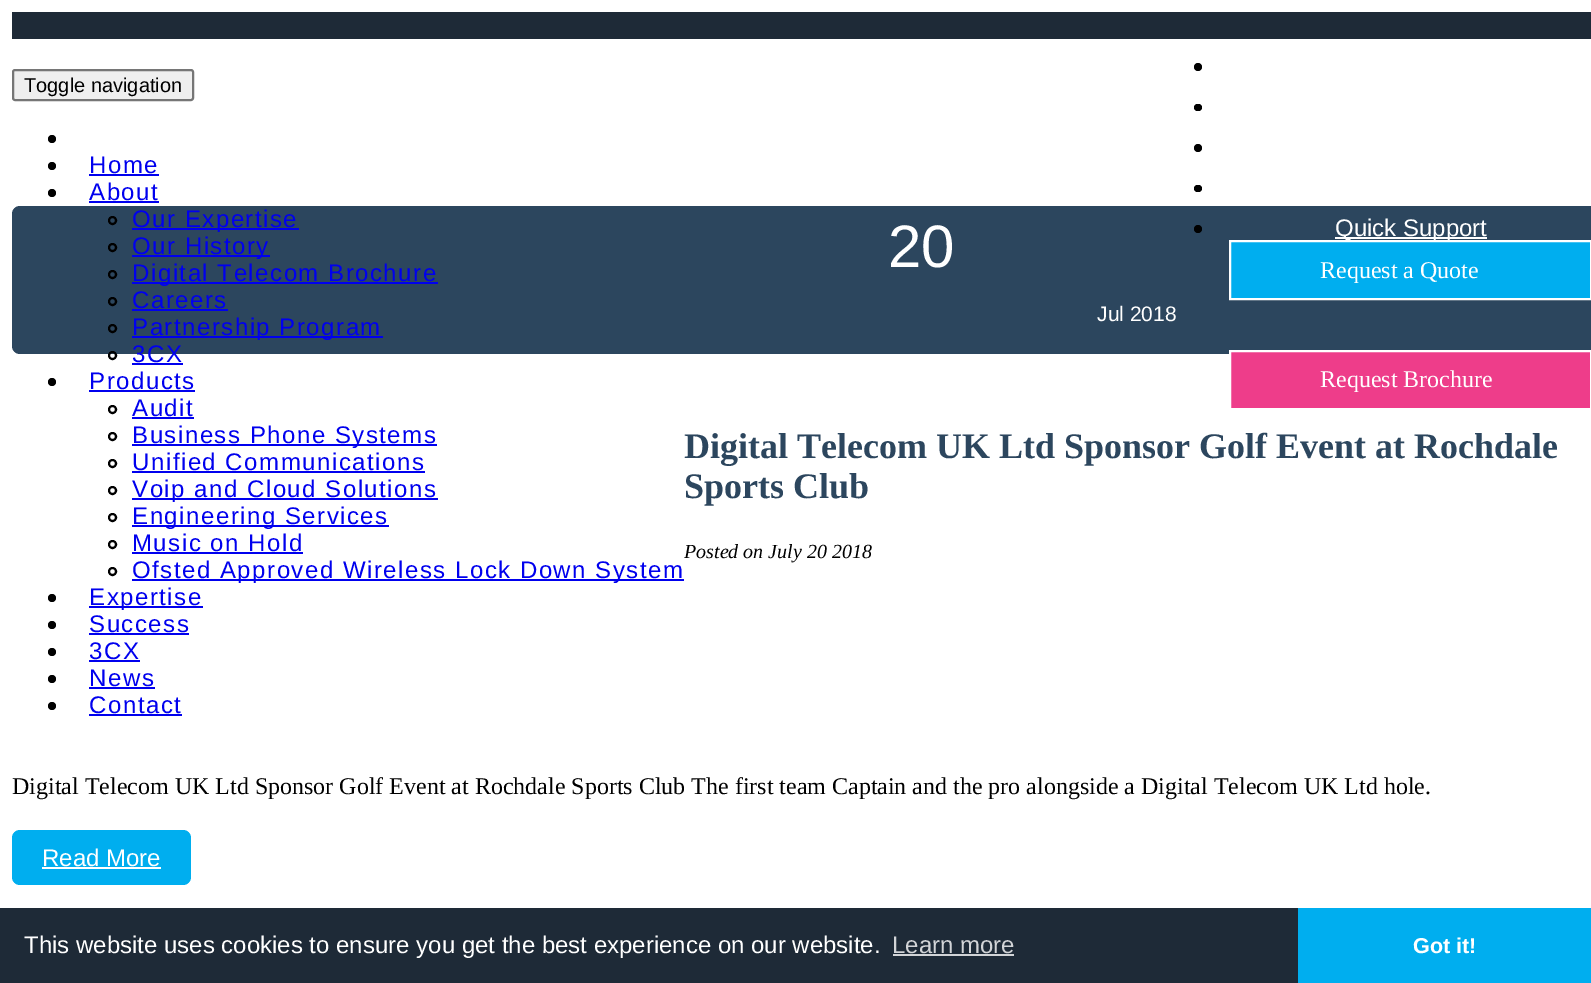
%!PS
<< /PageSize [1591 983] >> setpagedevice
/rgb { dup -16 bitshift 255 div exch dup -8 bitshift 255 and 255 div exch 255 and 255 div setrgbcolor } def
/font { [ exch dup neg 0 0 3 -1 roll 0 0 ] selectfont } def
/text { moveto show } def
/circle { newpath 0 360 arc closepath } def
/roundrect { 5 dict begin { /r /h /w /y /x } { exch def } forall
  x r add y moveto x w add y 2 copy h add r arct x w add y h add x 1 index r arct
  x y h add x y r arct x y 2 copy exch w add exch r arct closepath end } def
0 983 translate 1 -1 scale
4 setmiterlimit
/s1 { /LiberationSans-Regular 20 font 16#000000 rgb } def
/s2 { /LiberationSans-Regular 24 font 16#FFFFFF rgb } def
/s3 { /LiberationSans-Regular 60 font 16#FFFFFF rgb } def
/s4 { /LiberationSans-Regular 21 font 16#FFFFFF rgb } def
/s5 { /LiberationSerif-Bold 36 font 16#2C465E rgb } def
/s6 { /LiberationSerif-Italic 20 font 16#000000 rgb } def
/s7 { /LiberationSerif-Regular 24 font 16#000000 rgb } def
/s8 { /LiberationSerif-Regular 24 font 16#FFFFFF rgb } def
/s9 { /LiberationSans-Regular 24 font 16#D2D4D7 rgb } def
/s10 { /LiberationSans-Bold 21.5 font 16#FFFFFF rgb } def
16#FFFFFF rgb
0 0 1591 983 rectfill
16#EFEFEF rgb
13 70 180 30 2 roundrect gsave fill grestore
16#767676 rgb
2 setlinewidth
stroke
s1
(Toggle navigation) 24 92 text
52 139 4 circle fill
52 166 4 circle fill
/LiberationSans-Regular 24 font
16#0000EE rgb
89 173 moveto 1.5 0 (Home) ashow
89 174 70 2 rectfill
16#000000 rgb
52 193 4 circle fill
16#0000EE rgb
89 200 moveto 1.5 0 (About) ashow
89 201 70 2 rectfill
16#2C465E rgb
12 206 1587 148 8 roundrect fill
16#000000 rgb
112.5 220.5 3.5 circle stroke
16#0000EE rgb
132 228 167 2 rectfill
132 227 moveto 1.5 0 (Our Expertise) ashow
16#000000 rgb
112.5 247.5 3.5 circle stroke
16#0000EE rgb
132 255 138 2 rectfill
132 254 moveto 1.5 0 (Our History) ashow
16#000000 rgb
112.5 274.5 3.5 circle stroke
16#0000EE rgb
132 282 306 2 rectfill
132 281 moveto 1.5 0 (Digital Telecom Brochure) ashow
16#000000 rgb
112.5 301.5 3.5 circle stroke
16#0000EE rgb
132 308 moveto 1.5 0 (Careers) ashow
132 309 96 2 rectfill
16#000000 rgb
112.5 328.5 3.5 circle stroke
16#0000EE rgb
132 336 251 2 rectfill
132 335 moveto 1.5 0 (Partnership Program) ashow
16#000000 rgb
112.5 355.5 3.5 circle stroke
16#0000EE rgb
132 362 moveto 1.5 0 (3CX) ashow
132 363 51 2 rectfill
16#000000 rgb
52 382 4 circle fill
16#0000EE rgb
89 389 moveto 1.5 0 (Products) ashow
89 390 106 2 rectfill
16#000000 rgb
112.5 409.5 3.5 circle stroke
16#0000EE rgb
132 416 moveto 1.5 0 (Audit) ashow
132 417 62 2 rectfill
16#000000 rgb
112.5 436.5 3.5 circle stroke
16#0000EE rgb
132 444 305 2 rectfill
132 443 moveto 1.5 0 (Business Phone Systems) ashow
16#000000 rgb
112.5 463.5 3.5 circle stroke
16#0000EE rgb
132 470 moveto 1.5 0 (Unified Communications) ashow
132 471 293 2 rectfill
16#000000 rgb
112.5 490.5 3.5 circle stroke
16#0000EE rgb
132 498 306 2 rectfill
132 497 moveto 1.5 0 (Voip and Cloud Solutions) ashow
16#000000 rgb
112.5 517.5 3.5 circle stroke
16#0000EE rgb
132 525 257 2 rectfill
132 524 moveto 1.5 0 (Engineering Services) ashow
16#000000 rgb
112.5 544.5 3.5 circle stroke
16#0000EE rgb
132 551 moveto 1.5 0 (Music on Hold) ashow
132 552 171 2 rectfill
16#000000 rgb
112.5 571.5 3.5 circle stroke
16#0000EE rgb
132 579 552 2 rectfill
132 578 moveto 1.5 0 (Ofsted Approved Wireless Lock Down System) ashow
16#000000 rgb
52 598 4 circle fill
16#0000EE rgb
89 606 114 2 rectfill
89 605 moveto 1.5 0 (Expertise) ashow
16#000000 rgb
52 625 4 circle fill
16#0000EE rgb
89 632 moveto 1.5 0 (Success) ashow
89 633 100 2 rectfill
16#000000 rgb
52 652 4 circle fill
16#0000EE rgb
89 659 moveto 1.5 0 (3CX) ashow
89 660 51 2 rectfill
16#000000 rgb
52 679 4 circle fill
16#0000EE rgb
89 686 moveto 1.5 0 (News) ashow
89 687 66 2 rectfill
16#000000 rgb
52 706 4 circle fill
16#0000EE rgb
89 713 moveto 1.5 0 (Contact) ashow
89 714 93 2 rectfill
16#1E2A37 rgb
12 12 1579 27 rectfill
16#000000 rgb
1198 67 4 circle fill
1194 104 8 7 3.5 roundrect fill
1198 148 4 circle fill
1194 185 8 7 3.5 roundrect fill
1198 229 4 circle fill
16#FFFFFF rgb
1335 237 152 2 rectfill
(Quick Support) 1335 236 text
s3
(20) 888 267 text
s4
(Jul 2018) 1097 321 text
s5
(Digital Telecom UK Ltd Sponsor Golf Event at Rochdale) 684 458 text
(Sports Club) 684 498 text
s6
(Posted on July 20 2018) 684 558 text
s7
(Digital Telecom UK Ltd Sponsor Golf Event at Rochdale Sports Club The first team Captain and the pro alongside a Digital Telecom UK Ltd hole.) 12 794 text
16#00AEEF rgb
12 830 179 55 8 roundrect fill
s2
(Read More) 42 866 text
42 867 119 2 rectfill
16#00AEEF rgb
1230 241 moveto 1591 241 lineto 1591 299 lineto 1230 299 lineto closepath gsave fill grestore
16#FFFFFF rgb
stroke
s8
(Request a Quote) 1320 278 text
16#EE3D8A rgb
1230 351 moveto 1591 351 lineto 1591 409 lineto 1230 409 lineto closepath gsave fill grestore
16#FFFFFF rgb
stroke
(Request Brochure) 1320 387 text
16#1E2A37 rgb
0 908 1298 75 rectfill
s2
(This website uses cookies to ensure you get the best experience on our website.) 24 953 text
s9
(Learn more) 892 953 text
893 954 121 2 rectfill
16#00AEEF rgb
1298 908 293 75 rectfill
s10
(Got it!) 1413 953 text
showpage
